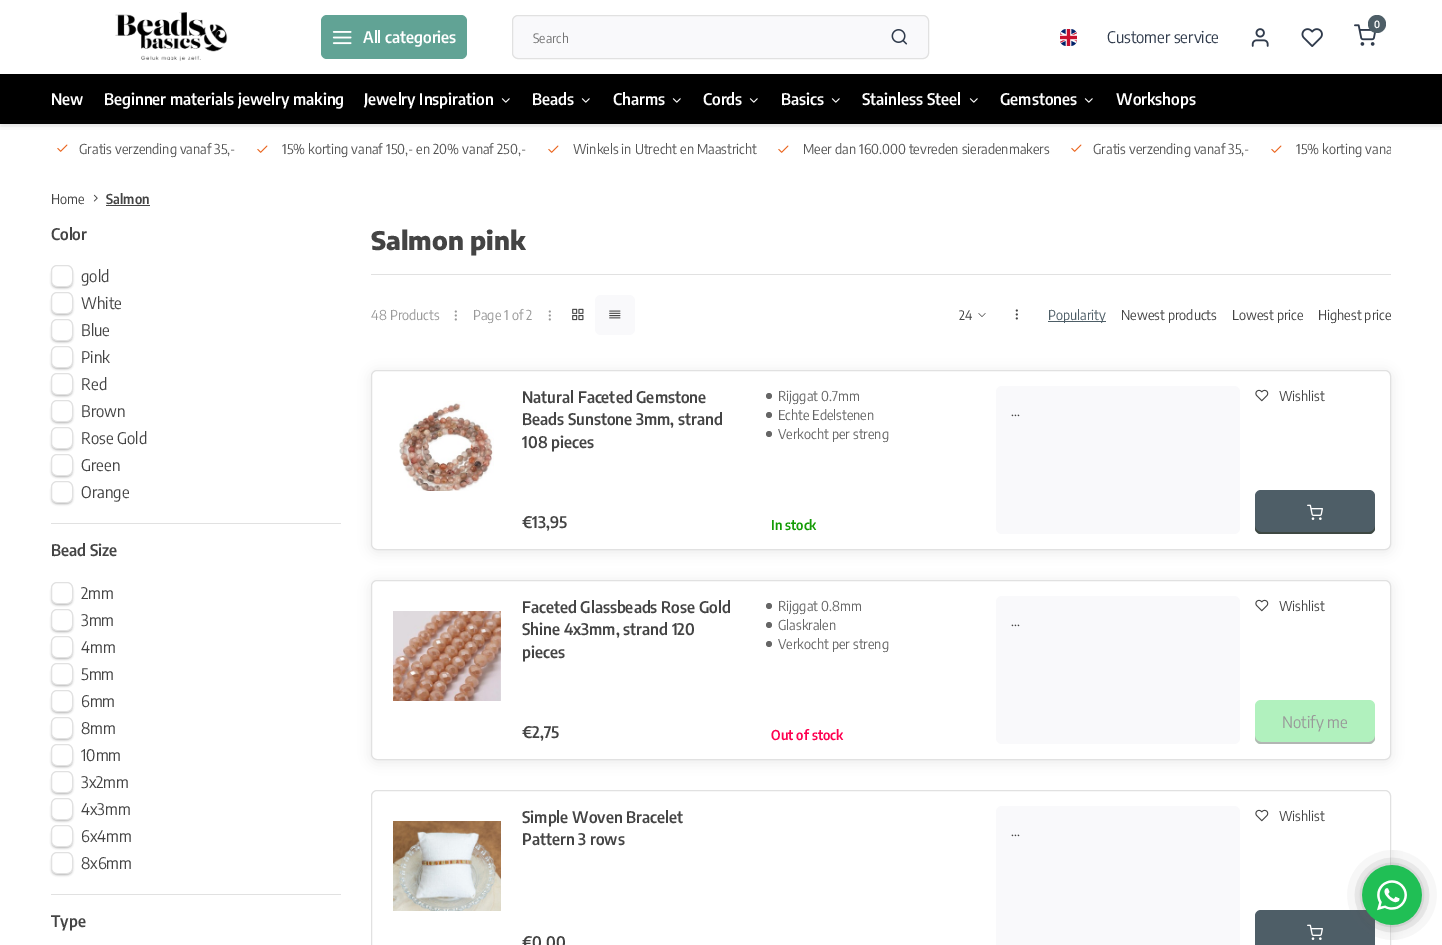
%!PS
<< /PageSize [1442 945] /PageUsesTransparency true >> setpagedevice
/rgb { dup -16 bitshift 255 div exch dup -8 bitshift 255 and 255 div exch 255 and 255 div setrgbcolor } def
/font { [ exch dup neg 0 0 3 -1 roll 0 0 ] selectfont } def
/text { moveto show } def
/alpha { dup .setfillconstantalpha .setstrokeconstantalpha } def
/circle { newpath 0 360 arc closepath } def
/roundrect { 5 dict begin { /r /h /w /y /x } { exch def } forall
  x r add y moveto x w add y 2 copy h add r arct x w add y h add x 1 index r arct
  x y h add x y r arct x y 2 copy exch w add exch r arct closepath end } def
/shadow { 12 dict begin { /a /b /q /h /w /y /x } { exch def } forall gsave /was 0 def
  9 -2 -9 { dup b mul 4 div /e exch def 1 sub .425 mul 2.718 exch exp 1 add a .99 .min exch div /now exch def
    1 1 now sub 1 was sub div sub alpha /was now def
    w h .min e 2 mul add 0 gt { x e sub y e sub w e 2 mul add h e 2 mul add
      q e add b .6 mul add w h .min 2 div e add .min 0 .max roundrect fill } if } for grestore end } def
/picture { 5 dict begin { /h /w /y /x /name } { exch def } forall
  gsave x y translate w h scale
  w h 8 [w 0 0 h 0 0] name (r) file false 3 colorimage grestore end } def
0 .pushpdf14devicefilter
0 945 translate 1 -1 scale
4 setmiterlimit
/s1 { /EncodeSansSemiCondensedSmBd-SemiBold 16 font 16#FFFFFF rgb } def
/s2 { /EncodeSansSemiCondensed-Regular 13 font 16#757575 rgb } def
/s3 { /EncodeSansSemiCondensedSmBd-SemiBold 10 font 16#FFFFFF rgb } def
/s4 { /EncodeSansSemiCondensed-Regular 16 font 16#303B4C rgb } def
/s5 { /EncodeSansSemiCondensed-Regular 13.6 font 16#555555 rgb } def
/s6 { /EncodeSansSemiCondensed-Regular 13.6 font 16#444444 rgb } def
/s7 { /EncodeSansSemiCondensedSmBd-SemiBold 13.6 font 16#444444 rgb } def
/s8 { /EncodeSansSemiCondensedSmBd-SemiBold 16 font 16#444444 rgb } def
/s9 { /EncodeSansSemiCondensed-Regular 16 font 16#444444 rgb } def
/s10 { /EncodeSansCondensed-Thin 25.5 font 16#444444 rgb } def
/s11 { /EncodeSansSemiCondensed-Regular 13.6 font 16#999999 rgb } def
/s12 { /EncodeSansSemiCondensed-Regular 13 font 16#444444 rgb } def
/s13 { /EncodeSansSemiCondensed-Regular 13.6 font 16#4E5E67 rgb } def
/s14 { /EncodeSansSemiCondensed-Regular 13.6 font 16#666666 rgb } def
/s15 { /EncodeSansSemiCondensedSmBd-SemiBold 13.6 font 16#159C06 rgb } def
/s16 { /EncodeSansSemiCondensedSmBd-SemiBold 13.6 font 16#FF0050 rgb } def
/s17 { /EncodeSansSemiCondensed-Regular 16 font 16#999999 rgb } def
16#FFFFFF rgb
0 0 1442 945 rectfill
(pic9.raw) 57 144 11 8 picture
(pic9.raw) 1071 144 11 8 picture
gsave
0 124 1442 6 rectclip
16#000000 rgb
0 5 1442 124 0 5 0.05 shadow
grestore
gsave
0 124 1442 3 rectclip
16#000000 rgb
0 3 1442 124 0 2 0.05 shadow
grestore
(pic1.raw) 115 12 113 49 picture
16#61A395 rgb
321 15 146 44 6 roundrect fill
(pic2.raw) 332 31 20 14 picture
s1
(All categories) 363 43 text
16#F9F9FB rgb
512.5 15.5 416 43 5.5 roundrect gsave fill grestore
16#E1E1E1 rgb
stroke
s2
(Search) 533 43 text
(pic3.raw) 891 29 17 16 picture
(pic4.raw) 1354 24 22 22 picture
16#4E5E67 rgb
1377 24 9 circle fill
s3
(0) 1374 28 text
(pic5.raw) 1060 29 17 17 picture
s4
(Customer service) 1107 43 text
(pic6.raw) 1251 28 18 19 picture
(pic7.raw) 1301 28 22 19 picture
16#000000 rgb
0 74 1442 50 rectfill
s1
(New) 51 105 text
(Beginner materials jewelry making) 104 105 text
(Jewelry Inspiration) 364 105 text
(pic8.raw) 501 98 9 5 picture
(Beads) 532 105 text
(pic8.raw) 581 98 9 5 picture
(Charms) 613 105 text
(pic8.raw) 672 98 9 5 picture
(Cords) 703 105 text
(pic8.raw) 749 98 9 5 picture
(Basics) 781 105 text
(pic8.raw) 831 98 9 5 picture
(Stainless Steel) 862 105 text
(pic8.raw) 969 98 9 5 picture
(Gemstones) 1000 105 text
(pic8.raw) 1084 98 9 5 picture
(Workshops) 1116 105 text
s5
(Gratis verzending vanaf 35,-) 79 154 text
(pic9.raw) 257 145 11 8 picture
(15% korting vanaf 150,- en 20% vanaf 250,-) 282 154 text
(pic9.raw) 548 145 11 8 picture
(Winkels in Utrecht en Maastricht) 573 154 text
(pic9.raw) 778 145 11 8 picture
(Meer dan 160.000 tevreden sieradenmakers) 803 154 text
(Gratis verzending vanaf 35,-) 1093 154 text
(pic9.raw) 1271 145 11 8 picture
gsave
51 124 1340 50 rectclip
(15% korting vana) 1296 154 text
grestore
s6
(Home) 51 204 text
(pic10.raw) 93 194 5 8 picture
s7
(Salmon) 106 204 text
106 205 44 1 rectfill
16#E1E1E1 rgb
51 523 290 1 rectfill
s8
(Color) 51 240 text
gsave
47 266 moveto 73 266 lineto 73 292 lineto 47 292 lineto closepath 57 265 moveto 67 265 lineto 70.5 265 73 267.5 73 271 curveto 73 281 lineto 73 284.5 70.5 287 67 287 curveto 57 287 lineto 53.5 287 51 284.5 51 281 curveto 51 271 lineto 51 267.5 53.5 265 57 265 curveto closepath eoclip newpath
16#999999 rgb
53 272 14 14 2 1.5 1 shadow
grestore
gsave
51 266 moveto 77 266 lineto 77 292 lineto 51 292 lineto closepath 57 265 moveto 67 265 lineto 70.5 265 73 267.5 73 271 curveto 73 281 lineto 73 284.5 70.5 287 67 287 curveto 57 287 lineto 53.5 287 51 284.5 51 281 curveto 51 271 lineto 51 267.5 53.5 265 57 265 curveto closepath eoclip newpath
16#999999 rgb
57 272 14 14 2 1.5 1 shadow
grestore
gsave
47 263 moveto 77 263 lineto 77 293 lineto 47 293 lineto closepath 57 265 moveto 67 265 lineto 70.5 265 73 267.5 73 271 curveto 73 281 lineto 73 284.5 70.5 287 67 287 curveto 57 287 lineto 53.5 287 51 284.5 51 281 curveto 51 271 lineto 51 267.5 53.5 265 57 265 curveto closepath eoclip newpath
16#999999 rgb
53 269 18 18 4 1.5 1 shadow
grestore
16#E1E1E1 rgb
51.5 265.5 21 21 5.5 roundrect stroke
s9
(gold) 81 282 text
gsave
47 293 moveto 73 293 lineto 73 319 lineto 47 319 lineto closepath 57 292 moveto 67 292 lineto 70.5 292 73 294.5 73 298 curveto 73 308 lineto 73 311.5 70.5 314 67 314 curveto 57 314 lineto 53.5 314 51 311.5 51 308 curveto 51 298 lineto 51 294.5 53.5 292 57 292 curveto closepath eoclip newpath
16#999999 rgb
53 299 14 14 2 1.5 1 shadow
grestore
gsave
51 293 moveto 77 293 lineto 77 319 lineto 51 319 lineto closepath 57 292 moveto 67 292 lineto 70.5 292 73 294.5 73 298 curveto 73 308 lineto 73 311.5 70.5 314 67 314 curveto 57 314 lineto 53.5 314 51 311.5 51 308 curveto 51 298 lineto 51 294.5 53.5 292 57 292 curveto closepath eoclip newpath
16#999999 rgb
57 299 14 14 2 1.5 1 shadow
grestore
gsave
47 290 moveto 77 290 lineto 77 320 lineto 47 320 lineto closepath 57 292 moveto 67 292 lineto 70.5 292 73 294.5 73 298 curveto 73 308 lineto 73 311.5 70.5 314 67 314 curveto 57 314 lineto 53.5 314 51 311.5 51 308 curveto 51 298 lineto 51 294.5 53.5 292 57 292 curveto closepath eoclip newpath
16#999999 rgb
53 296 18 18 4 1.5 1 shadow
grestore
16#E1E1E1 rgb
51.5 292.5 21 21 5.5 roundrect stroke
s9
(White) 81 309 text
gsave
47 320 moveto 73 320 lineto 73 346 lineto 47 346 lineto closepath 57 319 moveto 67 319 lineto 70.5 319 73 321.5 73 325 curveto 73 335 lineto 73 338.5 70.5 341 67 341 curveto 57 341 lineto 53.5 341 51 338.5 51 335 curveto 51 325 lineto 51 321.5 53.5 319 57 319 curveto closepath eoclip newpath
16#999999 rgb
53 326 14 14 2 1.5 1 shadow
grestore
gsave
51 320 moveto 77 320 lineto 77 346 lineto 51 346 lineto closepath 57 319 moveto 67 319 lineto 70.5 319 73 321.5 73 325 curveto 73 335 lineto 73 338.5 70.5 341 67 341 curveto 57 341 lineto 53.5 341 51 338.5 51 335 curveto 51 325 lineto 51 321.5 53.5 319 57 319 curveto closepath eoclip newpath
16#999999 rgb
57 326 14 14 2 1.5 1 shadow
grestore
gsave
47 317 moveto 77 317 lineto 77 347 lineto 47 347 lineto closepath 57 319 moveto 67 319 lineto 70.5 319 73 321.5 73 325 curveto 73 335 lineto 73 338.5 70.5 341 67 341 curveto 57 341 lineto 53.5 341 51 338.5 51 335 curveto 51 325 lineto 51 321.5 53.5 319 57 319 curveto closepath eoclip newpath
16#999999 rgb
53 323 18 18 4 1.5 1 shadow
grestore
16#E1E1E1 rgb
51.5 319.5 21 21 5.5 roundrect stroke
s9
(Blue) 81 336 text
gsave
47 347 moveto 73 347 lineto 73 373 lineto 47 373 lineto closepath 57 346 moveto 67 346 lineto 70.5 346 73 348.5 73 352 curveto 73 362 lineto 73 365.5 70.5 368 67 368 curveto 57 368 lineto 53.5 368 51 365.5 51 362 curveto 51 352 lineto 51 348.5 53.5 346 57 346 curveto closepath eoclip newpath
16#999999 rgb
53 353 14 14 2 1.5 1 shadow
grestore
gsave
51 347 moveto 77 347 lineto 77 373 lineto 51 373 lineto closepath 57 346 moveto 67 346 lineto 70.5 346 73 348.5 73 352 curveto 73 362 lineto 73 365.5 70.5 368 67 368 curveto 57 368 lineto 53.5 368 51 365.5 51 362 curveto 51 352 lineto 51 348.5 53.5 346 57 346 curveto closepath eoclip newpath
16#999999 rgb
57 353 14 14 2 1.5 1 shadow
grestore
gsave
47 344 moveto 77 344 lineto 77 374 lineto 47 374 lineto closepath 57 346 moveto 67 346 lineto 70.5 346 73 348.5 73 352 curveto 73 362 lineto 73 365.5 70.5 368 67 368 curveto 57 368 lineto 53.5 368 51 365.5 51 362 curveto 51 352 lineto 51 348.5 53.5 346 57 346 curveto closepath eoclip newpath
16#999999 rgb
53 350 18 18 4 1.5 1 shadow
grestore
16#E1E1E1 rgb
51.5 346.5 21 21 5.5 roundrect stroke
s9
(Pink) 81 363 text
gsave
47 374 moveto 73 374 lineto 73 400 lineto 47 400 lineto closepath 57 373 moveto 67 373 lineto 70.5 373 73 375.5 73 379 curveto 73 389 lineto 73 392.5 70.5 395 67 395 curveto 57 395 lineto 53.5 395 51 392.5 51 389 curveto 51 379 lineto 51 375.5 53.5 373 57 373 curveto closepath eoclip newpath
16#999999 rgb
53 380 14 14 2 1.5 1 shadow
grestore
gsave
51 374 moveto 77 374 lineto 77 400 lineto 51 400 lineto closepath 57 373 moveto 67 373 lineto 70.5 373 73 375.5 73 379 curveto 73 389 lineto 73 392.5 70.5 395 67 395 curveto 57 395 lineto 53.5 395 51 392.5 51 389 curveto 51 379 lineto 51 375.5 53.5 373 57 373 curveto closepath eoclip newpath
16#999999 rgb
57 380 14 14 2 1.5 1 shadow
grestore
gsave
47 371 moveto 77 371 lineto 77 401 lineto 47 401 lineto closepath 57 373 moveto 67 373 lineto 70.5 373 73 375.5 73 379 curveto 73 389 lineto 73 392.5 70.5 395 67 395 curveto 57 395 lineto 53.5 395 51 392.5 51 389 curveto 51 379 lineto 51 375.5 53.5 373 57 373 curveto closepath eoclip newpath
16#999999 rgb
53 377 18 18 4 1.5 1 shadow
grestore
16#E1E1E1 rgb
51.5 373.5 21 21 5.5 roundrect stroke
s9
(Red) 81 390 text
gsave
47 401 moveto 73 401 lineto 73 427 lineto 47 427 lineto closepath 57 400 moveto 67 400 lineto 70.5 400 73 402.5 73 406 curveto 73 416 lineto 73 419.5 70.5 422 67 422 curveto 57 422 lineto 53.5 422 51 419.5 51 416 curveto 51 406 lineto 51 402.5 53.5 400 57 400 curveto closepath eoclip newpath
16#999999 rgb
53 407 14 14 2 1.5 1 shadow
grestore
gsave
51 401 moveto 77 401 lineto 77 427 lineto 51 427 lineto closepath 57 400 moveto 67 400 lineto 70.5 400 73 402.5 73 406 curveto 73 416 lineto 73 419.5 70.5 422 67 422 curveto 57 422 lineto 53.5 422 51 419.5 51 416 curveto 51 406 lineto 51 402.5 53.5 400 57 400 curveto closepath eoclip newpath
16#999999 rgb
57 407 14 14 2 1.5 1 shadow
grestore
gsave
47 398 moveto 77 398 lineto 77 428 lineto 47 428 lineto closepath 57 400 moveto 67 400 lineto 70.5 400 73 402.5 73 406 curveto 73 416 lineto 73 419.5 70.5 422 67 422 curveto 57 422 lineto 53.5 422 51 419.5 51 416 curveto 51 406 lineto 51 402.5 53.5 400 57 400 curveto closepath eoclip newpath
16#999999 rgb
53 404 18 18 4 1.5 1 shadow
grestore
16#E1E1E1 rgb
51.5 400.5 21 21 5.5 roundrect stroke
s9
(Brown) 81 417 text
gsave
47 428 moveto 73 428 lineto 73 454 lineto 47 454 lineto closepath 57 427 moveto 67 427 lineto 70.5 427 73 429.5 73 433 curveto 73 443 lineto 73 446.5 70.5 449 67 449 curveto 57 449 lineto 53.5 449 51 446.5 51 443 curveto 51 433 lineto 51 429.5 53.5 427 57 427 curveto closepath eoclip newpath
16#999999 rgb
53 434 14 14 2 1.5 1 shadow
grestore
gsave
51 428 moveto 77 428 lineto 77 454 lineto 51 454 lineto closepath 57 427 moveto 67 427 lineto 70.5 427 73 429.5 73 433 curveto 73 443 lineto 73 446.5 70.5 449 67 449 curveto 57 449 lineto 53.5 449 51 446.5 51 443 curveto 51 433 lineto 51 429.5 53.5 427 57 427 curveto closepath eoclip newpath
16#999999 rgb
57 434 14 14 2 1.5 1 shadow
grestore
gsave
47 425 moveto 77 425 lineto 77 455 lineto 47 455 lineto closepath 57 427 moveto 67 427 lineto 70.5 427 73 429.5 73 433 curveto 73 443 lineto 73 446.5 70.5 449 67 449 curveto 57 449 lineto 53.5 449 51 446.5 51 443 curveto 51 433 lineto 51 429.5 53.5 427 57 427 curveto closepath eoclip newpath
16#999999 rgb
53 431 18 18 4 1.5 1 shadow
grestore
16#E1E1E1 rgb
51.5 427.5 21 21 5.5 roundrect stroke
s9
(Rose Gold) 81 444 text
gsave
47 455 moveto 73 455 lineto 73 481 lineto 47 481 lineto closepath 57 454 moveto 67 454 lineto 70.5 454 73 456.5 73 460 curveto 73 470 lineto 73 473.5 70.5 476 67 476 curveto 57 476 lineto 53.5 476 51 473.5 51 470 curveto 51 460 lineto 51 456.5 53.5 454 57 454 curveto closepath eoclip newpath
16#999999 rgb
53 461 14 14 2 1.5 1 shadow
grestore
gsave
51 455 moveto 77 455 lineto 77 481 lineto 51 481 lineto closepath 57 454 moveto 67 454 lineto 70.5 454 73 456.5 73 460 curveto 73 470 lineto 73 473.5 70.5 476 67 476 curveto 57 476 lineto 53.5 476 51 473.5 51 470 curveto 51 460 lineto 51 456.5 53.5 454 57 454 curveto closepath eoclip newpath
16#999999 rgb
57 461 14 14 2 1.5 1 shadow
grestore
gsave
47 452 moveto 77 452 lineto 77 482 lineto 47 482 lineto closepath 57 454 moveto 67 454 lineto 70.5 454 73 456.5 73 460 curveto 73 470 lineto 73 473.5 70.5 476 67 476 curveto 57 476 lineto 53.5 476 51 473.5 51 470 curveto 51 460 lineto 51 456.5 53.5 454 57 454 curveto closepath eoclip newpath
16#999999 rgb
53 458 18 18 4 1.5 1 shadow
grestore
16#E1E1E1 rgb
51.5 454.5 21 21 5.5 roundrect stroke
s9
(Green) 81 471 text
gsave
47 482 moveto 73 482 lineto 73 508 lineto 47 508 lineto closepath 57 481 moveto 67 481 lineto 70.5 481 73 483.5 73 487 curveto 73 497 lineto 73 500.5 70.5 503 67 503 curveto 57 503 lineto 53.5 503 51 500.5 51 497 curveto 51 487 lineto 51 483.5 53.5 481 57 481 curveto closepath eoclip newpath
16#999999 rgb
53 488 14 14 2 1.5 1 shadow
grestore
gsave
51 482 moveto 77 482 lineto 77 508 lineto 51 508 lineto closepath 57 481 moveto 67 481 lineto 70.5 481 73 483.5 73 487 curveto 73 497 lineto 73 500.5 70.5 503 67 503 curveto 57 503 lineto 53.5 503 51 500.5 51 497 curveto 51 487 lineto 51 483.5 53.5 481 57 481 curveto closepath eoclip newpath
16#999999 rgb
57 488 14 14 2 1.5 1 shadow
grestore
gsave
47 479 moveto 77 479 lineto 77 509 lineto 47 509 lineto closepath 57 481 moveto 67 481 lineto 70.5 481 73 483.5 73 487 curveto 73 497 lineto 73 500.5 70.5 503 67 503 curveto 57 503 lineto 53.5 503 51 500.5 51 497 curveto 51 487 lineto 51 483.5 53.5 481 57 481 curveto closepath eoclip newpath
16#999999 rgb
53 485 18 18 4 1.5 1 shadow
grestore
16#E1E1E1 rgb
51.5 481.5 21 21 5.5 roundrect stroke
s9
(Orange) 81 498 text
16#E1E1E1 rgb
51 894 290 1 rectfill
s8
(Bead Size) 51 556 text
gsave
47 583 moveto 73 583 lineto 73 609 lineto 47 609 lineto closepath 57 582 moveto 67 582 lineto 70.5 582 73 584.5 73 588 curveto 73 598 lineto 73 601.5 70.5 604 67 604 curveto 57 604 lineto 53.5 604 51 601.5 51 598 curveto 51 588 lineto 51 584.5 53.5 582 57 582 curveto closepath eoclip newpath
16#999999 rgb
53 589 14 14 2 1.5 1 shadow
grestore
gsave
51 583 moveto 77 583 lineto 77 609 lineto 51 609 lineto closepath 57 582 moveto 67 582 lineto 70.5 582 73 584.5 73 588 curveto 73 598 lineto 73 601.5 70.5 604 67 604 curveto 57 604 lineto 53.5 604 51 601.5 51 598 curveto 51 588 lineto 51 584.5 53.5 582 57 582 curveto closepath eoclip newpath
16#999999 rgb
57 589 14 14 2 1.5 1 shadow
grestore
gsave
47 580 moveto 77 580 lineto 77 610 lineto 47 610 lineto closepath 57 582 moveto 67 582 lineto 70.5 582 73 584.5 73 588 curveto 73 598 lineto 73 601.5 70.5 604 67 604 curveto 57 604 lineto 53.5 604 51 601.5 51 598 curveto 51 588 lineto 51 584.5 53.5 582 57 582 curveto closepath eoclip newpath
16#999999 rgb
53 586 18 18 4 1.5 1 shadow
grestore
16#E1E1E1 rgb
51.5 582.5 21 21 5.5 roundrect stroke
s9
(2mm) 81 599 text
gsave
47 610 moveto 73 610 lineto 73 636 lineto 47 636 lineto closepath 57 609 moveto 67 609 lineto 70.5 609 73 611.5 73 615 curveto 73 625 lineto 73 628.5 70.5 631 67 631 curveto 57 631 lineto 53.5 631 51 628.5 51 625 curveto 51 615 lineto 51 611.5 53.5 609 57 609 curveto closepath eoclip newpath
16#999999 rgb
53 616 14 14 2 1.5 1 shadow
grestore
gsave
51 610 moveto 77 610 lineto 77 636 lineto 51 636 lineto closepath 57 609 moveto 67 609 lineto 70.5 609 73 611.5 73 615 curveto 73 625 lineto 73 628.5 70.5 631 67 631 curveto 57 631 lineto 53.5 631 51 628.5 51 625 curveto 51 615 lineto 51 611.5 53.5 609 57 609 curveto closepath eoclip newpath
16#999999 rgb
57 616 14 14 2 1.5 1 shadow
grestore
gsave
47 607 moveto 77 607 lineto 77 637 lineto 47 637 lineto closepath 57 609 moveto 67 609 lineto 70.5 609 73 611.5 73 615 curveto 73 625 lineto 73 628.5 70.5 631 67 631 curveto 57 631 lineto 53.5 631 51 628.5 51 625 curveto 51 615 lineto 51 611.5 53.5 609 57 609 curveto closepath eoclip newpath
16#999999 rgb
53 613 18 18 4 1.5 1 shadow
grestore
16#E1E1E1 rgb
51.5 609.5 21 21 5.5 roundrect stroke
s9
(3mm) 81 626 text
gsave
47 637 moveto 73 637 lineto 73 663 lineto 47 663 lineto closepath 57 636 moveto 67 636 lineto 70.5 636 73 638.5 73 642 curveto 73 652 lineto 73 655.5 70.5 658 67 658 curveto 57 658 lineto 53.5 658 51 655.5 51 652 curveto 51 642 lineto 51 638.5 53.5 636 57 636 curveto closepath eoclip newpath
16#999999 rgb
53 643 14 14 2 1.5 1 shadow
grestore
gsave
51 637 moveto 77 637 lineto 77 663 lineto 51 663 lineto closepath 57 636 moveto 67 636 lineto 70.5 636 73 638.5 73 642 curveto 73 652 lineto 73 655.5 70.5 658 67 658 curveto 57 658 lineto 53.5 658 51 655.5 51 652 curveto 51 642 lineto 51 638.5 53.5 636 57 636 curveto closepath eoclip newpath
16#999999 rgb
57 643 14 14 2 1.5 1 shadow
grestore
gsave
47 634 moveto 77 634 lineto 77 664 lineto 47 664 lineto closepath 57 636 moveto 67 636 lineto 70.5 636 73 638.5 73 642 curveto 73 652 lineto 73 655.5 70.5 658 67 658 curveto 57 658 lineto 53.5 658 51 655.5 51 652 curveto 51 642 lineto 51 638.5 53.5 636 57 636 curveto closepath eoclip newpath
16#999999 rgb
53 640 18 18 4 1.5 1 shadow
grestore
16#E1E1E1 rgb
51.5 636.5 21 21 5.5 roundrect stroke
s9
(4mm) 81 653 text
gsave
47 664 moveto 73 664 lineto 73 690 lineto 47 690 lineto closepath 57 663 moveto 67 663 lineto 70.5 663 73 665.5 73 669 curveto 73 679 lineto 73 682.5 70.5 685 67 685 curveto 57 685 lineto 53.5 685 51 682.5 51 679 curveto 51 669 lineto 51 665.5 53.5 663 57 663 curveto closepath eoclip newpath
16#999999 rgb
53 670 14 14 2 1.5 1 shadow
grestore
gsave
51 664 moveto 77 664 lineto 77 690 lineto 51 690 lineto closepath 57 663 moveto 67 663 lineto 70.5 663 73 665.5 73 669 curveto 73 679 lineto 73 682.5 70.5 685 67 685 curveto 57 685 lineto 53.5 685 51 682.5 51 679 curveto 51 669 lineto 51 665.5 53.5 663 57 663 curveto closepath eoclip newpath
16#999999 rgb
57 670 14 14 2 1.5 1 shadow
grestore
gsave
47 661 moveto 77 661 lineto 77 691 lineto 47 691 lineto closepath 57 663 moveto 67 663 lineto 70.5 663 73 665.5 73 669 curveto 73 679 lineto 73 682.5 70.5 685 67 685 curveto 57 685 lineto 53.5 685 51 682.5 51 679 curveto 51 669 lineto 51 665.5 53.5 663 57 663 curveto closepath eoclip newpath
16#999999 rgb
53 667 18 18 4 1.5 1 shadow
grestore
16#E1E1E1 rgb
51.5 663.5 21 21 5.5 roundrect stroke
s9
(5mm) 81 680 text
gsave
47 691 moveto 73 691 lineto 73 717 lineto 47 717 lineto closepath 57 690 moveto 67 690 lineto 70.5 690 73 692.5 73 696 curveto 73 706 lineto 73 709.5 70.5 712 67 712 curveto 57 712 lineto 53.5 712 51 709.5 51 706 curveto 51 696 lineto 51 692.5 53.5 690 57 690 curveto closepath eoclip newpath
16#999999 rgb
53 697 14 14 2 1.5 1 shadow
grestore
gsave
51 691 moveto 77 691 lineto 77 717 lineto 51 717 lineto closepath 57 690 moveto 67 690 lineto 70.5 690 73 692.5 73 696 curveto 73 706 lineto 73 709.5 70.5 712 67 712 curveto 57 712 lineto 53.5 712 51 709.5 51 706 curveto 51 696 lineto 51 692.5 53.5 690 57 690 curveto closepath eoclip newpath
16#999999 rgb
57 697 14 14 2 1.5 1 shadow
grestore
gsave
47 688 moveto 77 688 lineto 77 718 lineto 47 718 lineto closepath 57 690 moveto 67 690 lineto 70.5 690 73 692.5 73 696 curveto 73 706 lineto 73 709.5 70.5 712 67 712 curveto 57 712 lineto 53.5 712 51 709.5 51 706 curveto 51 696 lineto 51 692.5 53.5 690 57 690 curveto closepath eoclip newpath
16#999999 rgb
53 694 18 18 4 1.5 1 shadow
grestore
16#E1E1E1 rgb
51.5 690.5 21 21 5.5 roundrect stroke
s9
(6mm) 81 707 text
gsave
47 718 moveto 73 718 lineto 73 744 lineto 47 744 lineto closepath 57 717 moveto 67 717 lineto 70.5 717 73 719.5 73 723 curveto 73 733 lineto 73 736.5 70.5 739 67 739 curveto 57 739 lineto 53.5 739 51 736.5 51 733 curveto 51 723 lineto 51 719.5 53.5 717 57 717 curveto closepath eoclip newpath
16#999999 rgb
53 724 14 14 2 1.5 1 shadow
grestore
gsave
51 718 moveto 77 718 lineto 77 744 lineto 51 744 lineto closepath 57 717 moveto 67 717 lineto 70.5 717 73 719.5 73 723 curveto 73 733 lineto 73 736.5 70.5 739 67 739 curveto 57 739 lineto 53.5 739 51 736.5 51 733 curveto 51 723 lineto 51 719.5 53.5 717 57 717 curveto closepath eoclip newpath
16#999999 rgb
57 724 14 14 2 1.5 1 shadow
grestore
gsave
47 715 moveto 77 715 lineto 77 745 lineto 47 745 lineto closepath 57 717 moveto 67 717 lineto 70.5 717 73 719.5 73 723 curveto 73 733 lineto 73 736.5 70.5 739 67 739 curveto 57 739 lineto 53.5 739 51 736.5 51 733 curveto 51 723 lineto 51 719.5 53.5 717 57 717 curveto closepath eoclip newpath
16#999999 rgb
53 721 18 18 4 1.5 1 shadow
grestore
16#E1E1E1 rgb
51.5 717.5 21 21 5.5 roundrect stroke
s9
(8mm) 81 734 text
gsave
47 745 moveto 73 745 lineto 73 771 lineto 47 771 lineto closepath 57 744 moveto 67 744 lineto 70.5 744 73 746.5 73 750 curveto 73 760 lineto 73 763.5 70.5 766 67 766 curveto 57 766 lineto 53.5 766 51 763.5 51 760 curveto 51 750 lineto 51 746.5 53.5 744 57 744 curveto closepath eoclip newpath
16#999999 rgb
53 751 14 14 2 1.5 1 shadow
grestore
gsave
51 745 moveto 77 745 lineto 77 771 lineto 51 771 lineto closepath 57 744 moveto 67 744 lineto 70.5 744 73 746.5 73 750 curveto 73 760 lineto 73 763.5 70.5 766 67 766 curveto 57 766 lineto 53.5 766 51 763.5 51 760 curveto 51 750 lineto 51 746.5 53.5 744 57 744 curveto closepath eoclip newpath
16#999999 rgb
57 751 14 14 2 1.5 1 shadow
grestore
gsave
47 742 moveto 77 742 lineto 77 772 lineto 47 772 lineto closepath 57 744 moveto 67 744 lineto 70.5 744 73 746.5 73 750 curveto 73 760 lineto 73 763.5 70.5 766 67 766 curveto 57 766 lineto 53.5 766 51 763.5 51 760 curveto 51 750 lineto 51 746.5 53.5 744 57 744 curveto closepath eoclip newpath
16#999999 rgb
53 748 18 18 4 1.5 1 shadow
grestore
16#E1E1E1 rgb
51.5 744.5 21 21 5.5 roundrect stroke
s9
(10mm) 81 761 text
gsave
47 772 moveto 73 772 lineto 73 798 lineto 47 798 lineto closepath 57 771 moveto 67 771 lineto 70.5 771 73 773.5 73 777 curveto 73 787 lineto 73 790.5 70.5 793 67 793 curveto 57 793 lineto 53.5 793 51 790.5 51 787 curveto 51 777 lineto 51 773.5 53.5 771 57 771 curveto closepath eoclip newpath
16#999999 rgb
53 778 14 14 2 1.5 1 shadow
grestore
gsave
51 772 moveto 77 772 lineto 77 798 lineto 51 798 lineto closepath 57 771 moveto 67 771 lineto 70.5 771 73 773.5 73 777 curveto 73 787 lineto 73 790.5 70.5 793 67 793 curveto 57 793 lineto 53.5 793 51 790.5 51 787 curveto 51 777 lineto 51 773.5 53.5 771 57 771 curveto closepath eoclip newpath
16#999999 rgb
57 778 14 14 2 1.5 1 shadow
grestore
gsave
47 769 moveto 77 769 lineto 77 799 lineto 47 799 lineto closepath 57 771 moveto 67 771 lineto 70.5 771 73 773.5 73 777 curveto 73 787 lineto 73 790.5 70.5 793 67 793 curveto 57 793 lineto 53.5 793 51 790.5 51 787 curveto 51 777 lineto 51 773.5 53.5 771 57 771 curveto closepath eoclip newpath
16#999999 rgb
53 775 18 18 4 1.5 1 shadow
grestore
16#E1E1E1 rgb
51.5 771.5 21 21 5.5 roundrect stroke
s9
(3x2mm) 81 788 text
gsave
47 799 moveto 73 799 lineto 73 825 lineto 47 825 lineto closepath 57 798 moveto 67 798 lineto 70.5 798 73 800.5 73 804 curveto 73 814 lineto 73 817.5 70.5 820 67 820 curveto 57 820 lineto 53.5 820 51 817.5 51 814 curveto 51 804 lineto 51 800.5 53.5 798 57 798 curveto closepath eoclip newpath
16#999999 rgb
53 805 14 14 2 1.5 1 shadow
grestore
gsave
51 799 moveto 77 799 lineto 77 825 lineto 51 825 lineto closepath 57 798 moveto 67 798 lineto 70.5 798 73 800.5 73 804 curveto 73 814 lineto 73 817.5 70.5 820 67 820 curveto 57 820 lineto 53.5 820 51 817.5 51 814 curveto 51 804 lineto 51 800.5 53.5 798 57 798 curveto closepath eoclip newpath
16#999999 rgb
57 805 14 14 2 1.5 1 shadow
grestore
gsave
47 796 moveto 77 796 lineto 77 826 lineto 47 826 lineto closepath 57 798 moveto 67 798 lineto 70.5 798 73 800.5 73 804 curveto 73 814 lineto 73 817.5 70.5 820 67 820 curveto 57 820 lineto 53.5 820 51 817.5 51 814 curveto 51 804 lineto 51 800.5 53.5 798 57 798 curveto closepath eoclip newpath
16#999999 rgb
53 802 18 18 4 1.5 1 shadow
grestore
16#E1E1E1 rgb
51.5 798.5 21 21 5.5 roundrect stroke
s9
(4x3mm) 81 815 text
gsave
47 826 moveto 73 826 lineto 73 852 lineto 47 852 lineto closepath 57 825 moveto 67 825 lineto 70.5 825 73 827.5 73 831 curveto 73 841 lineto 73 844.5 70.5 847 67 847 curveto 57 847 lineto 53.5 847 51 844.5 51 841 curveto 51 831 lineto 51 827.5 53.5 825 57 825 curveto closepath eoclip newpath
16#999999 rgb
53 832 14 14 2 1.5 1 shadow
grestore
gsave
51 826 moveto 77 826 lineto 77 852 lineto 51 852 lineto closepath 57 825 moveto 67 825 lineto 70.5 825 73 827.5 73 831 curveto 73 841 lineto 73 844.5 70.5 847 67 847 curveto 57 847 lineto 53.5 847 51 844.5 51 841 curveto 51 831 lineto 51 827.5 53.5 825 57 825 curveto closepath eoclip newpath
16#999999 rgb
57 832 14 14 2 1.5 1 shadow
grestore
gsave
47 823 moveto 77 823 lineto 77 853 lineto 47 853 lineto closepath 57 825 moveto 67 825 lineto 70.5 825 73 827.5 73 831 curveto 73 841 lineto 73 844.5 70.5 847 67 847 curveto 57 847 lineto 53.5 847 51 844.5 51 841 curveto 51 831 lineto 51 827.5 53.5 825 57 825 curveto closepath eoclip newpath
16#999999 rgb
53 829 18 18 4 1.5 1 shadow
grestore
16#E1E1E1 rgb
51.5 825.5 21 21 5.5 roundrect stroke
s9
(6x4mm) 81 842 text
gsave
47 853 moveto 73 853 lineto 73 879 lineto 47 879 lineto closepath 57 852 moveto 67 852 lineto 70.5 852 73 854.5 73 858 curveto 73 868 lineto 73 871.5 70.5 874 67 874 curveto 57 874 lineto 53.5 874 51 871.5 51 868 curveto 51 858 lineto 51 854.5 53.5 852 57 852 curveto closepath eoclip newpath
16#999999 rgb
53 859 14 14 2 1.5 1 shadow
grestore
gsave
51 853 moveto 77 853 lineto 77 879 lineto 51 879 lineto closepath 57 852 moveto 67 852 lineto 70.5 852 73 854.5 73 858 curveto 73 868 lineto 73 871.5 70.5 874 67 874 curveto 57 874 lineto 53.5 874 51 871.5 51 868 curveto 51 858 lineto 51 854.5 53.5 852 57 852 curveto closepath eoclip newpath
16#999999 rgb
57 859 14 14 2 1.5 1 shadow
grestore
gsave
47 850 moveto 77 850 lineto 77 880 lineto 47 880 lineto closepath 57 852 moveto 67 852 lineto 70.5 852 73 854.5 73 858 curveto 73 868 lineto 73 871.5 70.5 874 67 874 curveto 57 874 lineto 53.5 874 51 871.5 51 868 curveto 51 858 lineto 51 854.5 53.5 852 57 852 curveto closepath eoclip newpath
16#999999 rgb
53 856 18 18 4 1.5 1 shadow
grestore
16#E1E1E1 rgb
51.5 852.5 21 21 5.5 roundrect stroke
s9
(8x6mm) 81 869 text
s8
(Type) 51 927 text
s10
(Salmon pink) 371 250 text
16#E1E1E1 rgb
371 274 1020 1 rectfill
s11
(48 Products) 371 320 text
(pic11.raw) 454 310 3 11 picture
(Page 1 of 2) 473 320 text
(pic11.raw) 548 310 3 11 picture
(pic12.raw) 572 308 12 13 picture
16#F9F9FB rgb
595 295 40 40 6 roundrect fill
(pic13.raw) 609 310 12 9 picture
(pic14.raw) 978 313 8 4 picture
s12
(24) 959 320 text
(pic15.raw) 1015 309 3 11 picture
16#4E5E67 rgb
1048 321 58 1 rectfill
s13
(Popularity) 1048 320 text
s6
(Newest products) 1121 320 text
(Lowest price) 1232 320 text
(Highest price) 1318 320 text
gsave
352 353 moveto 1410 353 lineto 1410 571 lineto 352 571 lineto closepath 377 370 moveto 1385 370 lineto 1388.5 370 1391 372.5 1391 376 curveto 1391 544 lineto 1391 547.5 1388.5 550 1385 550 curveto 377 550 lineto 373.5 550 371 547.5 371 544 curveto 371 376 lineto 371 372.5 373.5 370 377 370 curveto closepath eoclip newpath
16#000000 rgb
371 372 1020 180 6 6 0.08 shadow
grestore
16#E1E1E1 rgb
371.5 370.5 1019 179 5.5 roundrect stroke
s8
(Natural Faceted Gemstone) 522 403 text
(Beads Sunstone 3mm, strand) 522 425 text
(108 pieces) 522 448 text
(€13,95) 522 528 text
16#666666 rgb
769 396 3 circle fill
s14
(Rijggat 0.7mm) 778 401 text
769 415 3 circle fill
(Echte Edelstenen) 778 420 text
769 434 3 circle fill
(Verkocht per streng) 778 439 text
s15
(In stock) 771 530 text
(pic16.raw) 1255 389 14 13 picture
s6
(Wishlist) 1279 401 text
16#4E5E67 rgb
1255 490 120 44 6 roundrect fill
16#3E4842 rgb
1255 526 moveto 1255 528 lineto 1255 531 1258 534 1261 534 curveto 1369 534 lineto 1372 534 1375 531 1375 528 curveto 1375 526 lineto 1375 529 1372 532 1369 532 curveto 1261 532 lineto 1258 532 1255 529 1255 526 curveto closepath fill
(pic17.raw) 1307 504 16 16 picture
(pic18.raw) 399 401 95 90 picture
16#F9F9FB rgb
996 386 244 148 6 roundrect fill
s6
(...) 1011 416 text
gsave
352 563 moveto 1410 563 lineto 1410 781 lineto 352 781 lineto closepath 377 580 moveto 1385 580 lineto 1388.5 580 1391 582.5 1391 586 curveto 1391 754 lineto 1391 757.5 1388.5 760 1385 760 curveto 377 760 lineto 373.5 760 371 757.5 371 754 curveto 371 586 lineto 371 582.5 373.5 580 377 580 curveto closepath eoclip newpath
16#000000 rgb
371 582 1020 180 6 6 0.08 shadow
grestore
16#E1E1E1 rgb
371.5 580.5 1019 179 5.5 roundrect stroke
(pic19.raw) 393 611 108 90 picture
s8
(Faceted Glassbeads Rose Gold) 522 613 text
(Shine 4x3mm, strand 120) 522 635 text
(pieces) 522 658 text
(€2,75) 522 738 text
16#666666 rgb
769 606 3 circle fill
s14
(Rijggat 0.8mm) 778 611 text
769 625 3 circle fill
(Glaskralen) 778 630 text
769 644 3 circle fill
(Verkocht per streng) 778 649 text
s16
(Out of stock) 771 740 text
16#F9F9FB rgb
996 596 244 148 6 roundrect fill
s6
(...) 1011 626 text
(pic16.raw) 1255 599 14 13 picture
(Wishlist) 1279 611 text
16#B1F1BE rgb
1255 700 120 44 6 roundrect fill
16#B2B6B3 rgb
1255 736 moveto 1255 738 lineto 1255 741 1258 744 1261 744 curveto 1369 744 lineto 1372 744 1375 741 1375 738 curveto 1375 736 lineto 1375 739 1372 742 1369 742 curveto 1261 742 lineto 1258 742 1255 739 1255 736 curveto closepath fill
s17
(Notify me) 1282 728 text
16#E1E1E1 rgb
371.5 790.5 1019 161 5.5 roundrect stroke
s8
(Simple Woven Bracelet) 522 823 text
(Pattern 3 rows) 522 845 text
(€0,00) 522 948 text
(pic16.raw) 1255 809 14 13 picture
s6
(Wishlist) 1279 821 text
16#4E5E67 rgb
1255 910 120 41 6 roundrect fill
(pic17.raw) 1307 924 16 16 picture
(pic20.raw) 393 821 108 90 picture
16#F9F9FB rgb
996 806 244 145 6 roundrect fill
s6
(...) 1011 836 text
(pic21.raw) 1347 850 90 90 picture
.poppdf14devicefilter showpage
